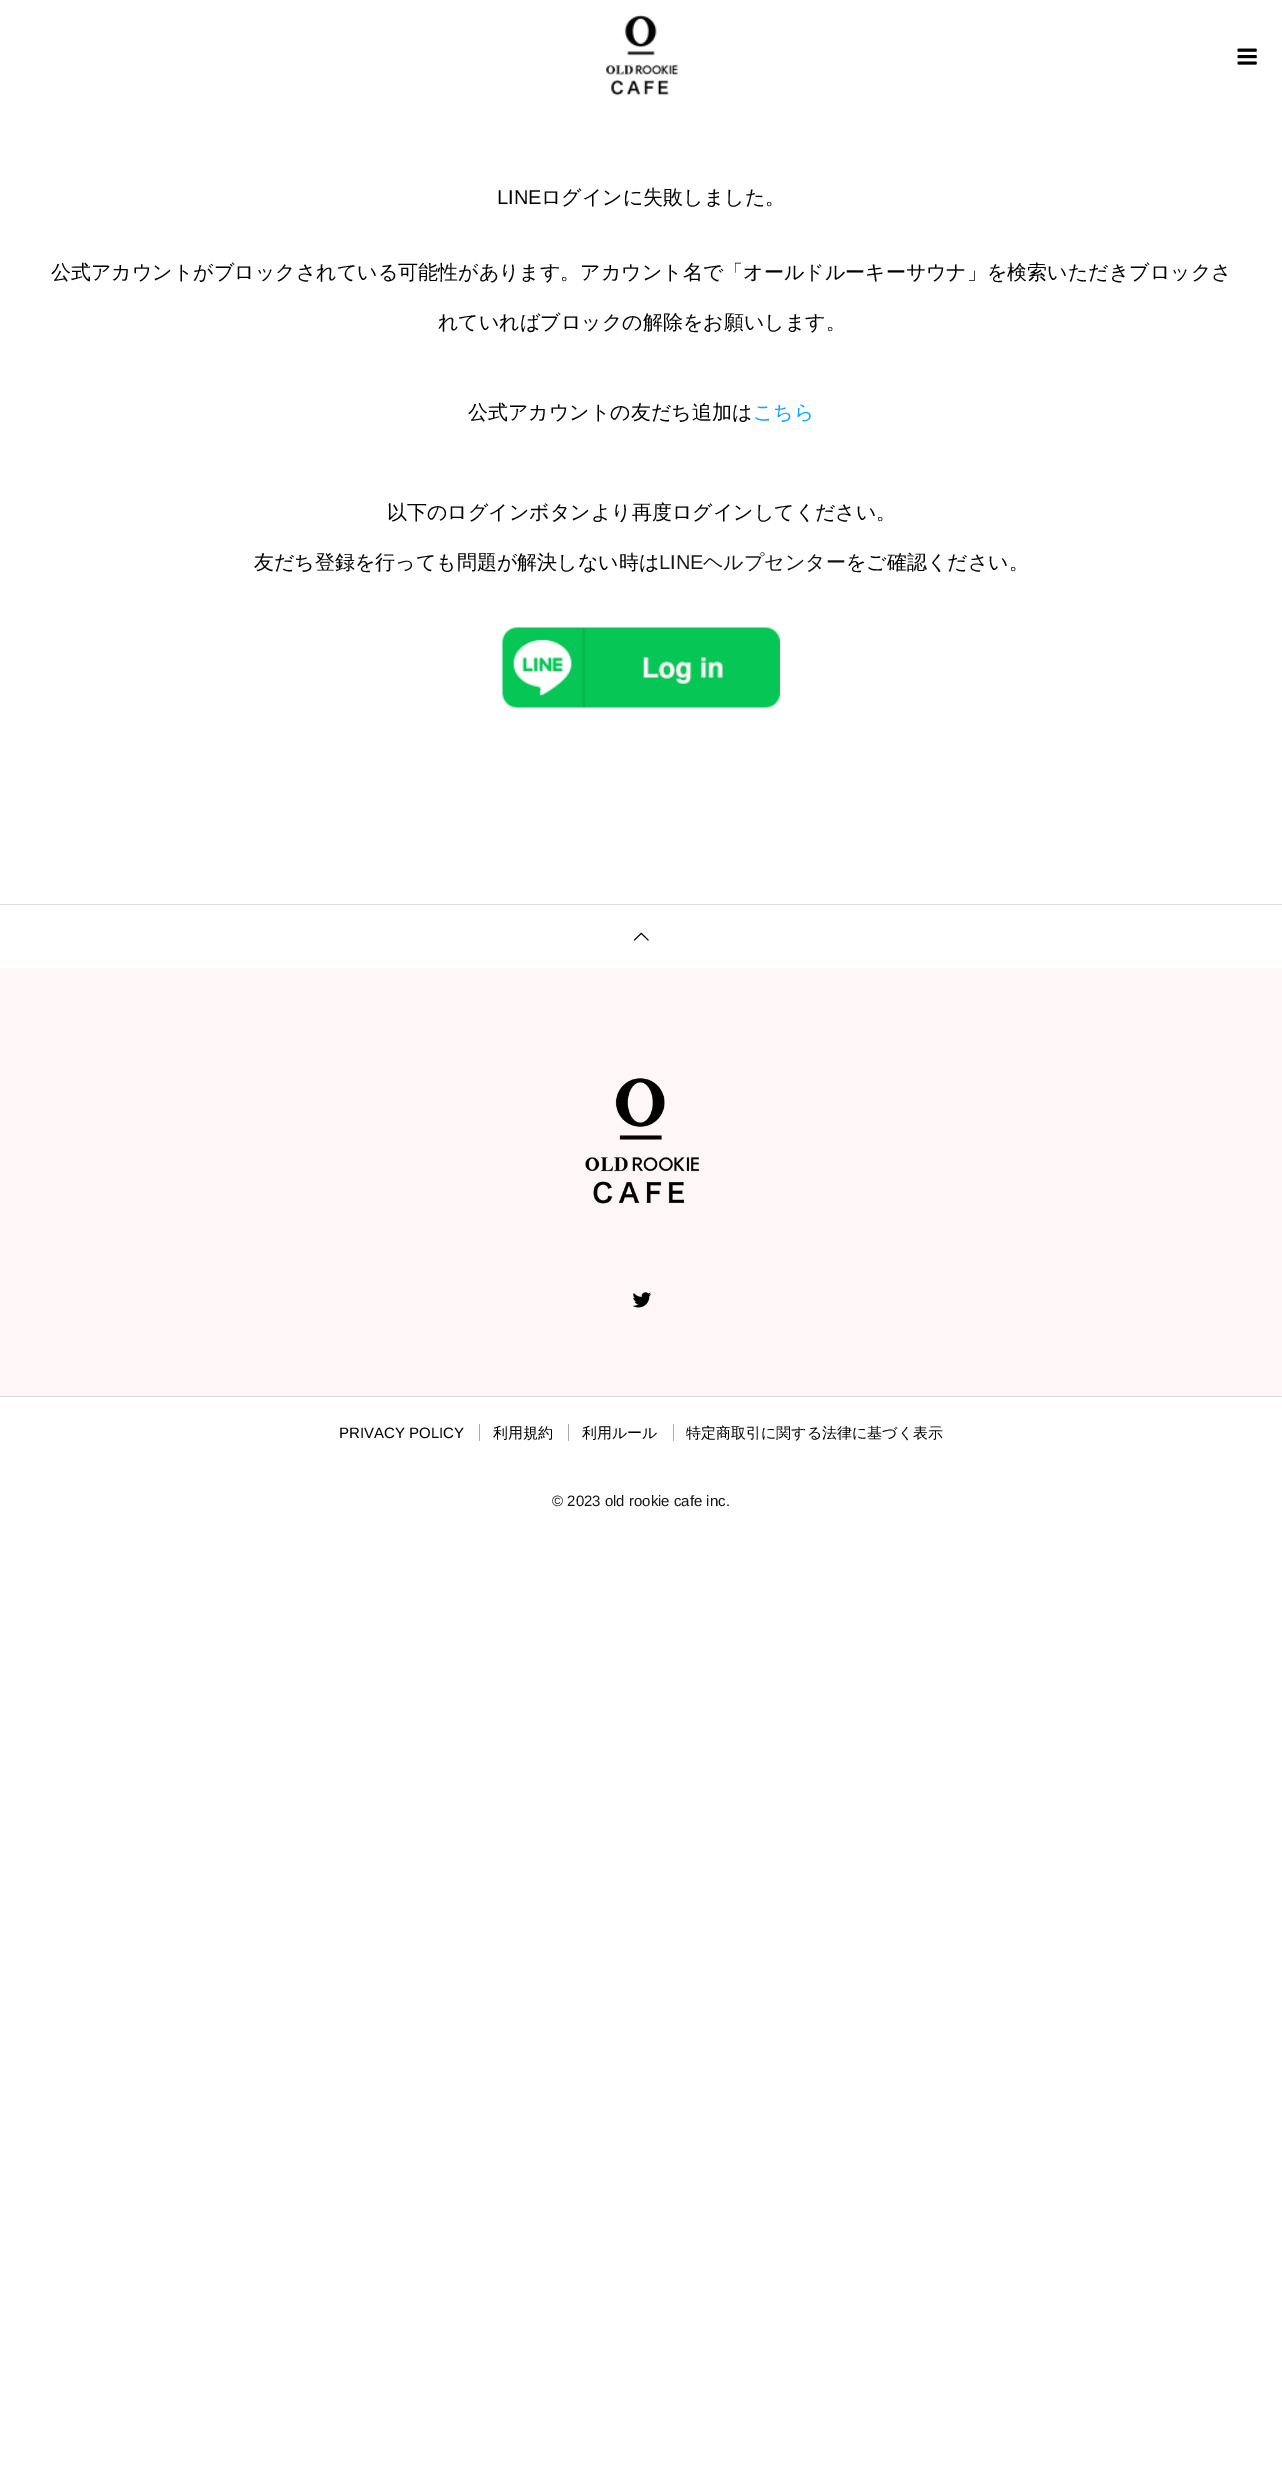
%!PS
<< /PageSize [1282 2467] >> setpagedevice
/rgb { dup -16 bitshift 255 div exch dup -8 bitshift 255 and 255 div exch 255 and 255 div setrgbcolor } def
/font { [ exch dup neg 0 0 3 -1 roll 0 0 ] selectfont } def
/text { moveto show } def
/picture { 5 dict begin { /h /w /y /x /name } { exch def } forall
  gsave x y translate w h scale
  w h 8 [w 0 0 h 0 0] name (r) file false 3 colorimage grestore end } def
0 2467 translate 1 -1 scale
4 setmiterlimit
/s1 { /LiberationSans-Regular 20 font 16#000000 rgb } def
/s2 { /WenQuanYiZenHei-Medium 20 font 16#000000 rgb } def
/s3 { /WenQuanYiZenHei-Medium 20 font 16#00AAFF rgb } def
/s4 { /LiberationSans-Regular 20 font 16#161616 rgb } def
/s5 { /WenQuanYiZenHei-Medium 20 font 16#161616 rgb } def
/s6 { /LiberationSans-Regular 15 font 16#000000 rgb } def
/s7 { /WenQuanYiZenHei-Medium 15 font 16#000000 rgb } def
/s8 { /LiberationSans-Regular 15 font 16#161616 rgb } def
16#FFFFFF rgb
0 0 1282 2467 rectfill
(pic1.raw) 606 15 72 81 picture
(pic2.raw) 1237 48 20 17 picture
s1
(LINE) 497 204 text
s2
(ログインに失敗しました。) 541 204 text
(公式アカウントがブロックされている可能性があります。アカウント名で「オールドルーキーサウナ」を検索いただきブロックさ) 51 279 text
(れていればブロックの解除をお願いします。) 438 329 text
(公式アカウントの友だち追加は) 468 419 text
s3
(こちら) 753 419 text
s2
(以下のログインボタンより再度ログインしてください。) 387 519 text
(友だち登録を行っても問題が解決しない時は) 254 569 text
s4
(LINE) 659 569 text
s5
(ヘルプセンター) 703 569 text
s2
(をご確認ください。) 846 569 text
(pic3.raw) 502 627 278 81 picture
16#DDDDDD rgb
0 904 1282 1 rectfill
(pic4.raw) 633 932 16 9 picture
16#FFF7F7 rgb
0 968 1282 428 rectfill
(pic5.raw) 585 1078 114 126 picture
(pic6.raw) 632 1292 20 16 picture
16#DDDDDD rgb
0 1396 1282 1 rectfill
s6
(PRIVACY POLICY) 339 1438 text
16#AAAAAA rgb
479 1424 1 17 rectfill
s7
(利用規約) 493 1438 text
16#AAAAAA rgb
568 1424 1 17 rectfill
s7
(利用ルール) 582 1438 text
16#AAAAAA rgb
673 1424 1 17 rectfill
s7
(特定商取引に関する法律に基づく表示) 686 1438 text
s8
(© 2023 old rookie cafe inc.) 552 1506 text
showpage
